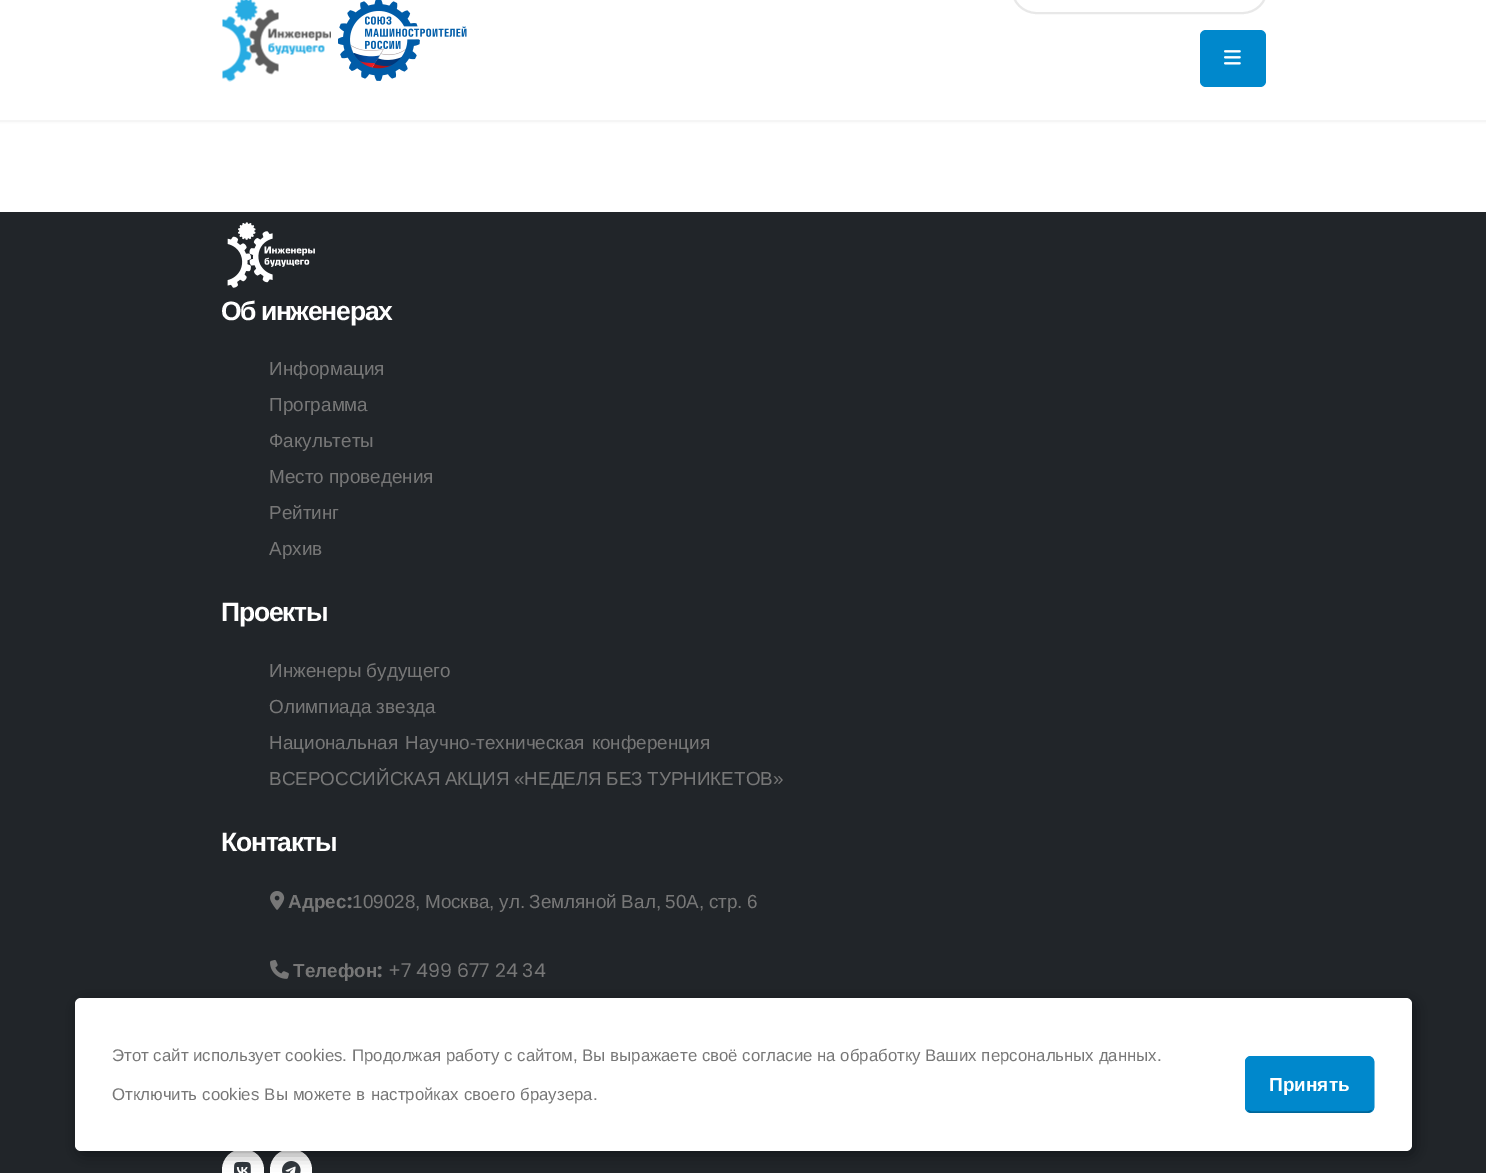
%!PS
<< /PageSize [1486 1173] /PageUsesTransparency true >> setpagedevice
/rgb { dup -16 bitshift 255 div exch dup -8 bitshift 255 and 255 div exch 255 and 255 div setrgbcolor } def
/font { [ exch dup neg 0 0 3 -1 roll 0 0 ] selectfont } def
/text { moveto show } def
/alpha { dup .setfillconstantalpha .setstrokeconstantalpha } def
/circle { newpath 0 360 arc closepath } def
/roundrect { 5 dict begin { /r /h /w /y /x } { exch def } forall
  x r add y moveto x w add y 2 copy h add r arct x w add y h add x 1 index r arct
  x y h add x y r arct x y 2 copy exch w add exch r arct closepath end } def
/shadow { 12 dict begin { /a /b /q /h /w /y /x } { exch def } forall gsave /was 0 def
  9 -2 -9 { dup b mul 4 div /e exch def 1 sub .425 mul 2.718 exch exp 1 add a .99 .min exch div /now exch def
    1 1 now sub 1 was sub div sub alpha /was now def
    w h .min e 2 mul add 0 gt { x e sub y e sub w e 2 mul add h e 2 mul add
      q e add b .6 mul add w h .min 2 div e add .min 0 .max roundrect fill } if } for grestore end } def
/picture { 5 dict begin { /h /w /y /x /name } { exch def } forall
  gsave x y translate w h scale
  w h 8 [w 0 0 h 0 0] name (r) file false 3 colorimage grestore end } def
0 .pushpdf14devicefilter
0 1173 translate 1 -1 scale
4 setmiterlimit
/s1 { /LiberationSans-Regular 18.9 font 16#777777 rgb } def
/s2 { /LiberationSans-Bold 18.9 font 16#777777 rgb } def
/s3 { /Poppins-Bold 18.9 font 16#777777 rgb } def
/s4 { /Poppins-Regular 18.9 font 16#777777 rgb } def
/s5 { /LiberationSans-Regular 16.8 font 16#777777 rgb } def
/s6 { /LiberationSans-Bold 19 font 16#FFFFFF rgb } def
16#FFFFFF rgb
0 0 1486 1173 rectfill
16#EAEAEA rgb
0 -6 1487 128 0 2 0.5 shadow
16#FFFFFF rgb
0 0 1486 120 rectfill
16#F5F5F5 rgb
0 120 1486 2 rectfill
(pic1.raw) 222 0 109 82 picture
(pic2.raw) 338 0 129 81 picture
16#E8E8E8 rgb
2 setlinewidth
1012 -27 255 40 24.5 roundrect stroke
16#0088CC rgb
1200 30 66 57 6 roundrect fill
(pic3.raw) 1224 50 17 15 picture
16#212529 rgb
0 212 1486 961 rectfill
(pic4.raw) 227 222 88 66 picture
/LiberationSans-Bold 26.5 font
16#FFFFFF rgb
221 320 moveto -1 0 32 -1.25 0 (Об инженерах) awidthshow
s1
(Информация) 269 375 text
(Программа) 269 411 text
(Факультеты) 269 447 text
(Место проведения) 269 483 text
(Рейтинг) 269 519 text
(Архив) 269 555 text
/LiberationSans-Bold 26.5 font
16#FFFFFF rgb
221 621 moveto -1.25 0 (Проекты) ashow
s1
(Инженеры будущего) 269 677 text
(Олимпиада звезда) 269 713 text
269 749 moveto 2 0 32 (Национальная Научно-техническая конференция) widthshow
269 785 moveto -1 0 32 (ВСЕРОССИЙСКАЯ АКЦИЯ «НЕДЕЛЯ БЕЗ ТУРНИКЕТОВ») widthshow
/LiberationSans-Bold 26.5 font
16#FFFFFF rgb
221 851 moveto -1.25 0 (Контакты) ashow
(pic5.raw) 270 891 15 19 picture
s2
(Адрес) 288 908 text
s3
(:) 347 908 text
/LiberationSans-Regular 18.9 font
352 908 moveto -0.75 0 32 (109028, Москва, ул. Земляной Вал, 50А, стр. 6) widthshow
(pic6.raw) 270 960 19 19 picture
s2
(Телефон) 293 977 text
s3
(:) 377 977 text
s4
(+7 499 677 24 34) 388 977 text
16#FFFFFF rgb
243 1170 21 circle fill
(pic7.raw) 234 1161 17 12 picture
291 1170 21 circle fill
(pic8.raw) 282 1161 19 12 picture
16#000000 rgb
78 1002 1337 153 6 7.5 0.4 shadow
16#FFFFFF rgb
75 998 1337 153 6 roundrect fill
s5
(Этот сайт использует cookies. Продолжая работу с сайтом, Вы выражаете своё согласие на обработку Ваших персональных данных.) 112 1061 text
112 1100 moveto 0.5 0 32 (Отключить cookies Вы можете в настройках своего браузера.) widthshow
16#0088CC rgb
1245 1056 129 57 6 roundrect fill
16#006699 rgb
1.5 setlinewidth
1372 1110.5 moveto 1368.5 1112 lineto 1250.5 1112 lineto 1247.5 1110.5 lineto stroke
16#0088CC rgb
1247.5 1110.5 moveto 1246.5 1109.5 1246 1108.5 1246 1107 curveto 1246 1062 lineto 1246 1060.5 1246.5 1059.5 1247.5 1058.5 curveto 1248.5 1057.5 1249.5 1057 1251 1057 curveto 1368 1057 lineto 1369.5 1057 1371 1057.5 1372 1058.5 curveto 1373 1059.5 1373.5 1060.5 1373.5 1062 curveto 1373.5 1107 lineto 1373.5 1108.5 1373 1109.5 1372 1110.5 curveto stroke
s6
(Принять) 1269 1091 text
.poppdf14devicefilter showpage
